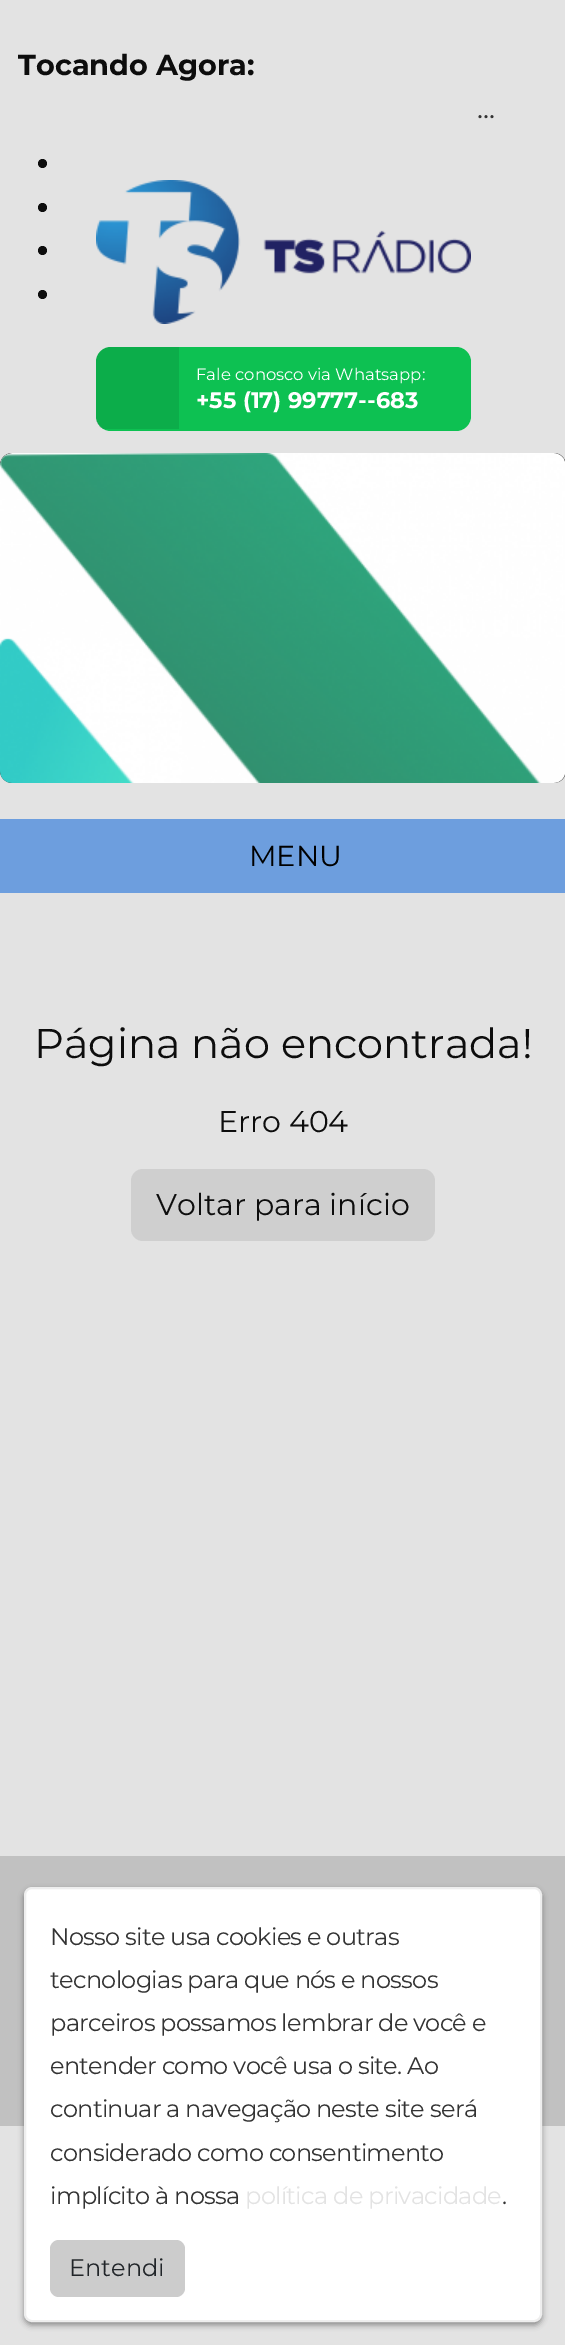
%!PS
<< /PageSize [565 2345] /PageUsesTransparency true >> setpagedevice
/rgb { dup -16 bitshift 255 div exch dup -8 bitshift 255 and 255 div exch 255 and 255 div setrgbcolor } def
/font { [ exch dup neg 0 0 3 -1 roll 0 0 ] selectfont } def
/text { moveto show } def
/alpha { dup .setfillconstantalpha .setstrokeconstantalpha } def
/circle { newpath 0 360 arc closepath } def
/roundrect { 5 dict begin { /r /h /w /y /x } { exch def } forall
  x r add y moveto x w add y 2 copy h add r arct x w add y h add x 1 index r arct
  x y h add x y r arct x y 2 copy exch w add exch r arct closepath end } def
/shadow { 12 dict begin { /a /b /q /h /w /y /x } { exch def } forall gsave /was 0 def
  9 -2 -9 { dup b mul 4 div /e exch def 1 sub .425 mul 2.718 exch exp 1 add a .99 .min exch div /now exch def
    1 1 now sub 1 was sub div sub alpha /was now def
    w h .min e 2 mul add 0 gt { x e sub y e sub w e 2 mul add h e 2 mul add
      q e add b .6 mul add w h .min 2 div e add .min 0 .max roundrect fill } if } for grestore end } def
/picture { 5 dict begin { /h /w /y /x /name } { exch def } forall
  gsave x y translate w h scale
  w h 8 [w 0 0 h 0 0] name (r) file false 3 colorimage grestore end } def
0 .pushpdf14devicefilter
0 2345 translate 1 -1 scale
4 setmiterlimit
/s1 { /Montserrat-Bold 28.75 font 16#0D0D0D rgb } def
/s2 { /Montserrat-Regular 28.75 font 16#333333 rgb } def
/s3 { /Montserrat-Regular 16.5 font 16#FFFFFF rgb } def
/s4 { /Montserrat-Bold 22.5 font 16#FFFFFF rgb } def
/s5 { /Montserrat-Regular 28.75 font 16#000000 rgb } def
/s6 { /Montserrat-Regular 41.5 font 16#0D0D0D rgb } def
/s7 { /Montserrat-Regular 30 font 16#0D0D0D rgb } def
/s8 { /Montserrat-Regular 24 font 16#212529 rgb } def
16#E3E3E3 rgb
0 0 565 2345 rectfill
s1
(Tocando Agora:) 18 75 text
s2
(...) 477 118 text
16#0D0D0D rgb
42.5 163.5 4.5 circle fill
42.5 207.5 4.5 circle fill
42.5 250.5 4.5 circle fill
42.5 294.5 4.5 circle fill
(pic1.raw) 96 180 375 144 picture
16#0DC152 rgb
96 347 375 84 15 roundrect fill
gsave
96 347 375 84 15 roundrect clip newpath
0.1 alpha
16#000000 rgb
111 347 moveto 179 347 lineto 179 429 lineto 96 429 lineto 96 362 lineto 96 353.5 102.5 347 111 347 curveto closepath fill
grestore
s3
(Fale conosco via Whatsapp:) 196 380 text
s4
(+55 \(17\) 99777--683) 196 408 text
16#151515 rgb
0 453 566 330 12 roundrect fill
(pic2.raw) 0 453 565 330 picture
16#6D9EDE rgb
0 819 565 74 rectfill
s5
(MENU) 249 866 text
s6
(Página não encontrada!) 34 1058 text
s7
(Erro 404) 218 1132 text
16#CFCFCF rgb
131 1169 304 72 12 roundrect fill
s7
(Voltar para início) 156 1215 text
16#C1C1C1 rgb
0 1856 565 270 rectfill
16#000000 rgb
24 1890 518 435 8 3 0.4 shadow
16#FFFFFF rgb
25 1888 516 433 7 roundrect gsave fill grestore
16#EEEEEE rgb
2 setlinewidth
stroke
/Montserrat-Regular 24 font
16#333333 rgb
50 1945 moveto -0.7 0 (Nosso site usa cookies e outras) ashow
50 1988 moveto -0.7 0 (tecnologias para que nós e nossos) ashow
50 2031 moveto -0.7 0 (parceiros possamos lembrar de você e) ashow
50 2074 moveto -0.7 0 (entender como você usa o site. Ao) ashow
50 2117 moveto -0.7 0 (continuar a navegação neste site será) ashow
50 2161 moveto -0.7 0 (considerado como consentimento) ashow
50 2204 moveto -0.7 0 (implícito à nossa) ashow
16#E3E3E3 rgb
245 2204 moveto -0.7 0 (política de privacidade) ashow
16#333333 rgb
502 2204 moveto -0.7 0 (.) ashow
16#CCCCCC rgb
50 2240 135 57 9 roundrect fill
s8
(Entendi) 69 2276 text
.poppdf14devicefilter showpage
